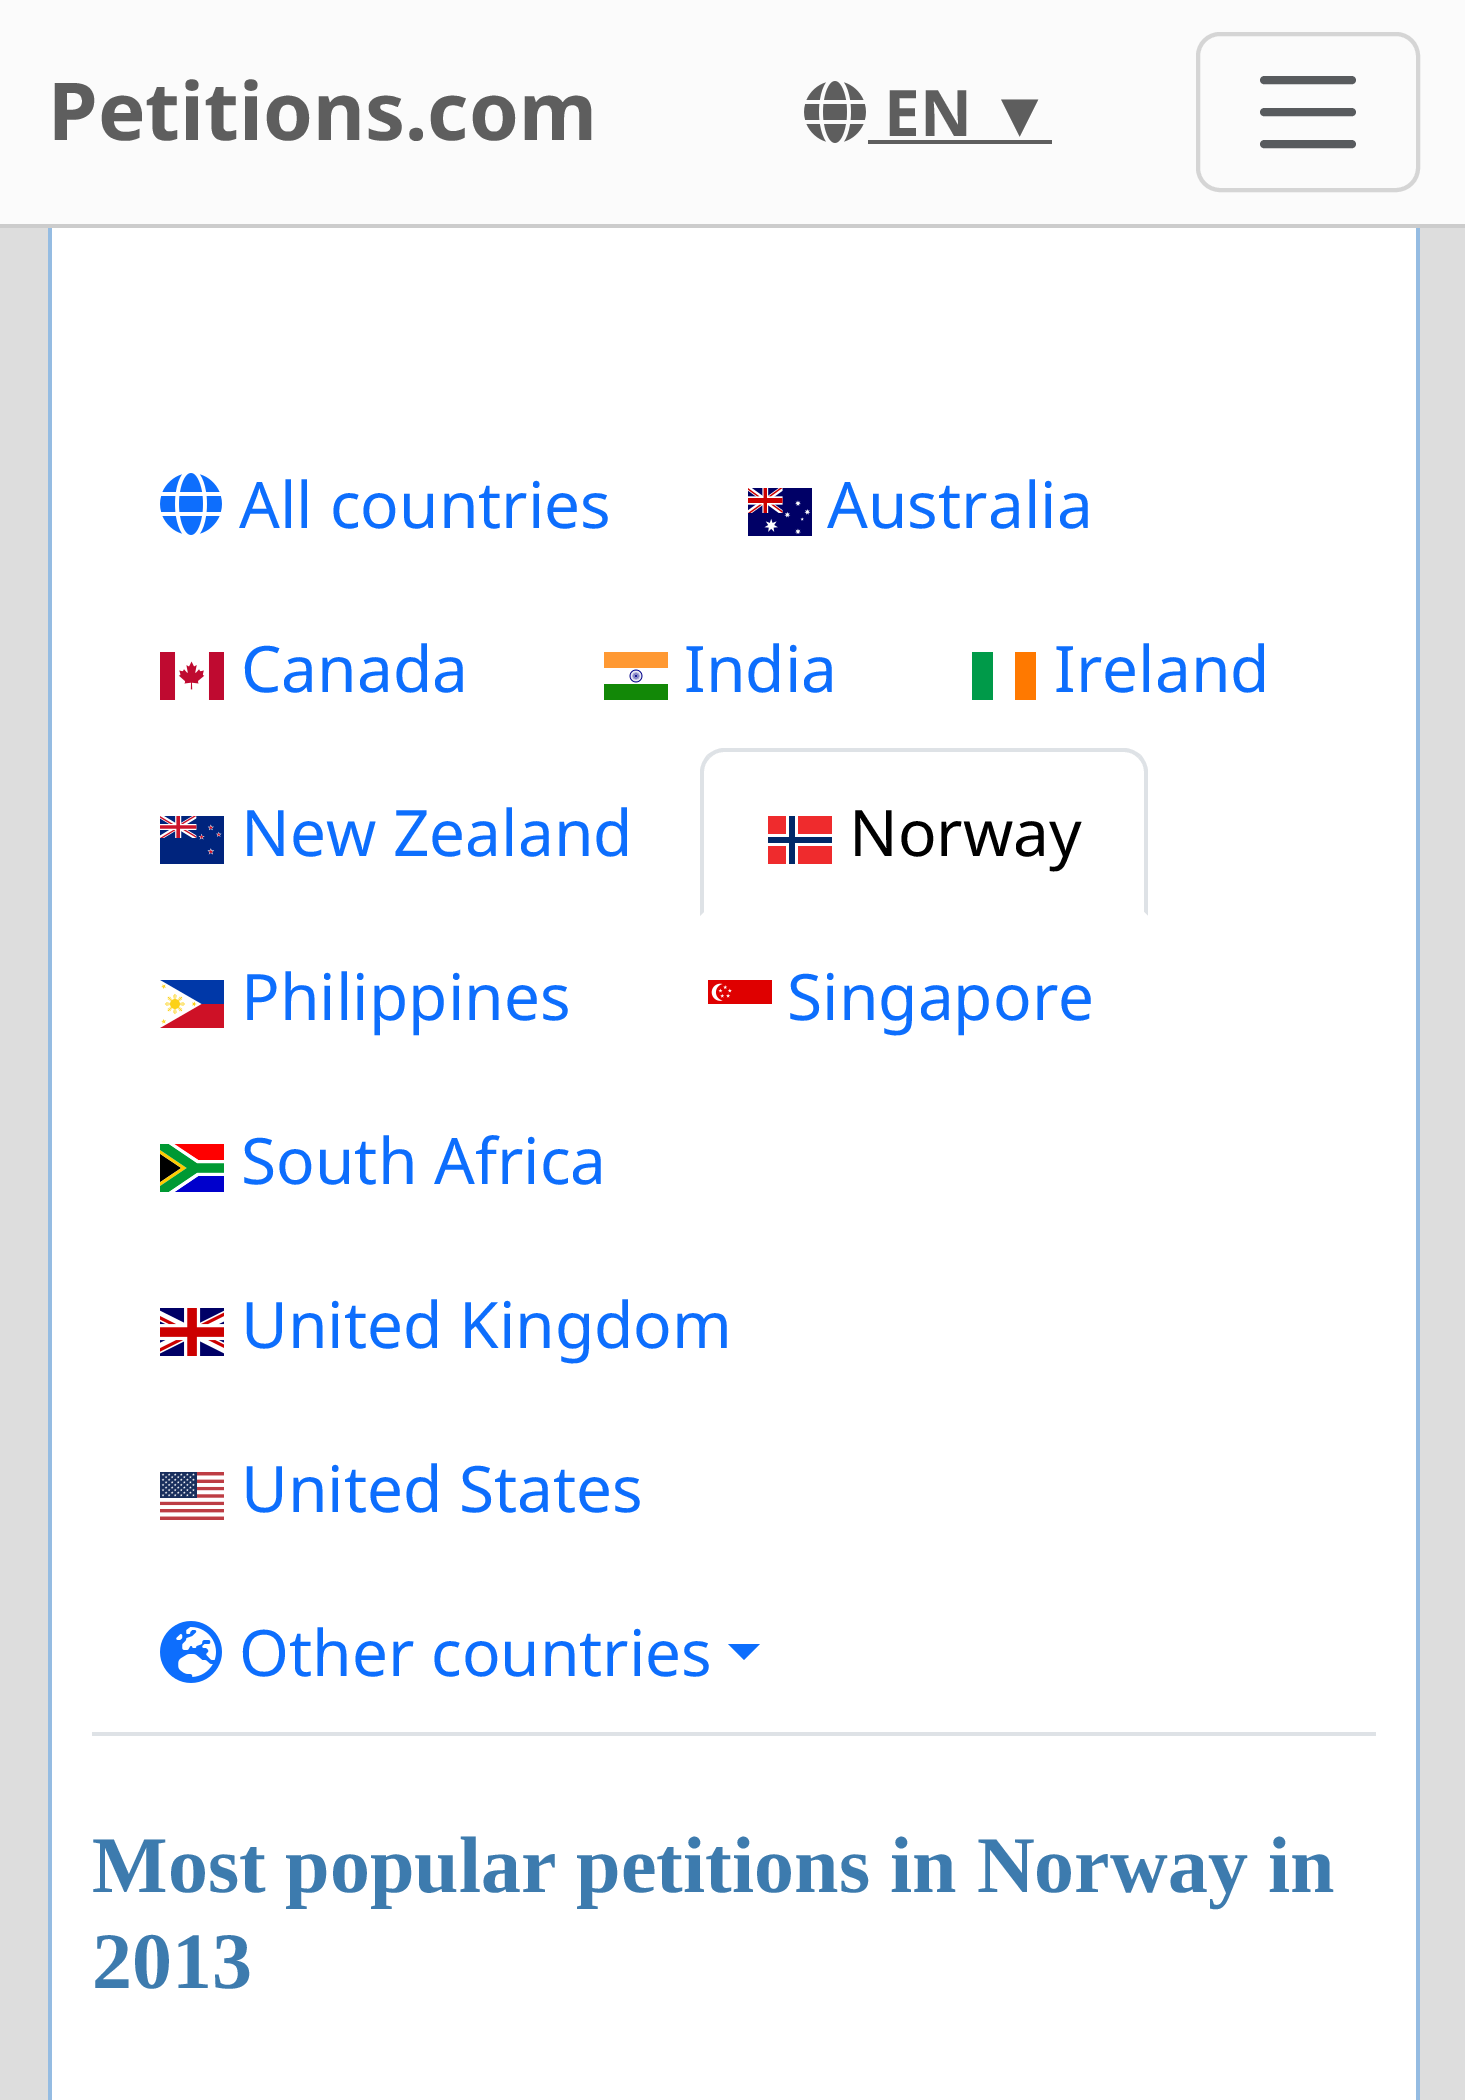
%!PS
<< /PageSize [1465 2100] >> setpagedevice
/rgb { dup -16 bitshift 255 div exch dup -8 bitshift 255 and 255 div exch 255 and 255 div setrgbcolor } def
/font { [ exch dup neg 0 0 3 -1 roll 0 0 ] selectfont } def
/text { moveto show } def
/roundrect { 5 dict begin { /r /h /w /y /x } { exch def } forall
  x r add y moveto x w add y 2 copy h add r arct x w add y h add x 1 index r arct
  x y h add x y r arct x y 2 copy exch w add exch r arct closepath end } def
/picture { 5 dict begin { /h /w /y /x /name } { exch def } forall
  gsave x y translate w h scale
  w h 8 [w 0 0 h 0 0] name (r) file false 3 colorimage grestore end } def
0 2100 translate 1 -1 scale
4 setmiterlimit
/s1 { /NotoSans-Bold 80 font 16#5E5E5E rgb } def
/s2 { /NotoSans-Bold 64 font 16#5E5E5E rgb } def
/s3 { /LiberationSans-Regular 64 font 16#5E5E5E rgb } def
/s4 { /NotoSans-Regular 64 font 16#0D6EFD rgb } def
/s5 { /NotoSans-Regular 64 font 16#000000 rgb } def
/s6 { /LiberationSerif-Bold 80 font 16#3D7BAE rgb } def
16#DDDDDD rgb
0 0 1465 2100 rectfill
16#FBFBFB rgb
0 0 1465 224 rectfill
16#CCCCCC rgb
0 224 1465 4 rectfill
s1
(Petitions.com) 48 140 text
(pic1.raw) 804 81 62 62 picture
s2
(EN) 884 136 text
868 140 184 4 rectfill
s3
(▼) 988 136 text
16#D5D5D5 rgb
4 setlinewidth
1198 34 220 156 22 roundrect stroke
16#585B5E rgb
8 setlinewidth
1 setlinecap
1264 80 moveto 1352 80 lineto 1264 112 moveto 1352 112 lineto 1264 144 moveto 1352 144 lineto stroke
16#FFFFFF rgb
52 228 1364 1872 rectfill
16#95BCE2 rgb
48 228 moveto 1420 228 lineto 1420 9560 lineto 1420 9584 1400 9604 1376 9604 curveto 92 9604 lineto 68 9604 48 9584 48 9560 curveto closepath 52 228 moveto 1416 228 lineto 1416 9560 lineto 1416 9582 1398 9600 1376 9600 curveto 92 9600 lineto 70 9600 52 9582 52 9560 curveto closepath eofill
16#DEE2E6 rgb
92 1732 1284 4 rectfill
(pic2.raw) 160 473 62 62 picture
s4
(All countries) 239 528 text
(pic3.raw) 748 488 64 48 picture
(Australia) 827 528 text
(pic4.raw) 160 652 64 48 picture
(Canada) 241 692 text
(pic5.raw) 604 652 64 48 picture
(India) 684 692 text
(Ireland) 1054 692 text
16#009A49 rgb
972 652 21 48 rectfill
16#FF7900 rgb
1015 652 21 48 rectfill
(pic6.raw) 160 816 64 48 picture
s4
(New Zealand) 241 856 text
16#DEE2E6 rgb
724 748 moveto 718 748 712 751 707 755 curveto 710 758 lineto 714 754 718 752 724 752 curveto 1124 752 lineto 1130 752 1134 754 1138 758 curveto 1141 755 lineto 1136 751 1130 748 1124 748 curveto closepath fill
1148 916 moveto 1148 772 lineto 1148 766 1145 760 1141 755 curveto 1138 758 lineto 1142 762 1144 766 1144 772 curveto 1144 912 lineto closepath fill
16#FFFFFF rgb
1148 916 moveto 1144 912 lineto 704 912 lineto 700 916 lineto closepath fill
16#DEE2E6 rgb
700 916 moveto 704 912 lineto 704 772 lineto 704 766 706 762 710 758 curveto 707 755 lineto 703 760 700 766 700 772 curveto closepath fill
s5
(Norway) 849 856 text
16#EF2B2D rgb
768 816 64 48 rectfill
16#FFFFFF rgb
786 816 12 48 rectfill
768 834 64 12 rectfill
16#002868 rgb
789 816 6 48 rectfill
768 837 64 6 rectfill
(pic7.raw) 160 980 64 48 picture
s4
(Philippines) 241 1020 text
(pic8.raw) 708 980 64 24 picture
(Singapore) 787 1020 text
(pic9.raw) 160 1144 64 48 picture
(South Africa) 241 1184 text
(pic10.raw) 160 1308 64 48 picture
(United Kingdom) 241 1348 text
(pic11.raw) 160 1472 64 48 picture
(United States) 241 1512 text
(pic12.raw) 160 1621 62 62 picture
(Other countries) 239 1676 text
728 1644 moveto 760 1644 lineto 744 1660 lineto closepath fill
s6
(Most popular petitions in Norway in) 92 1892 text
(2013) 92 1988 text
showpage
